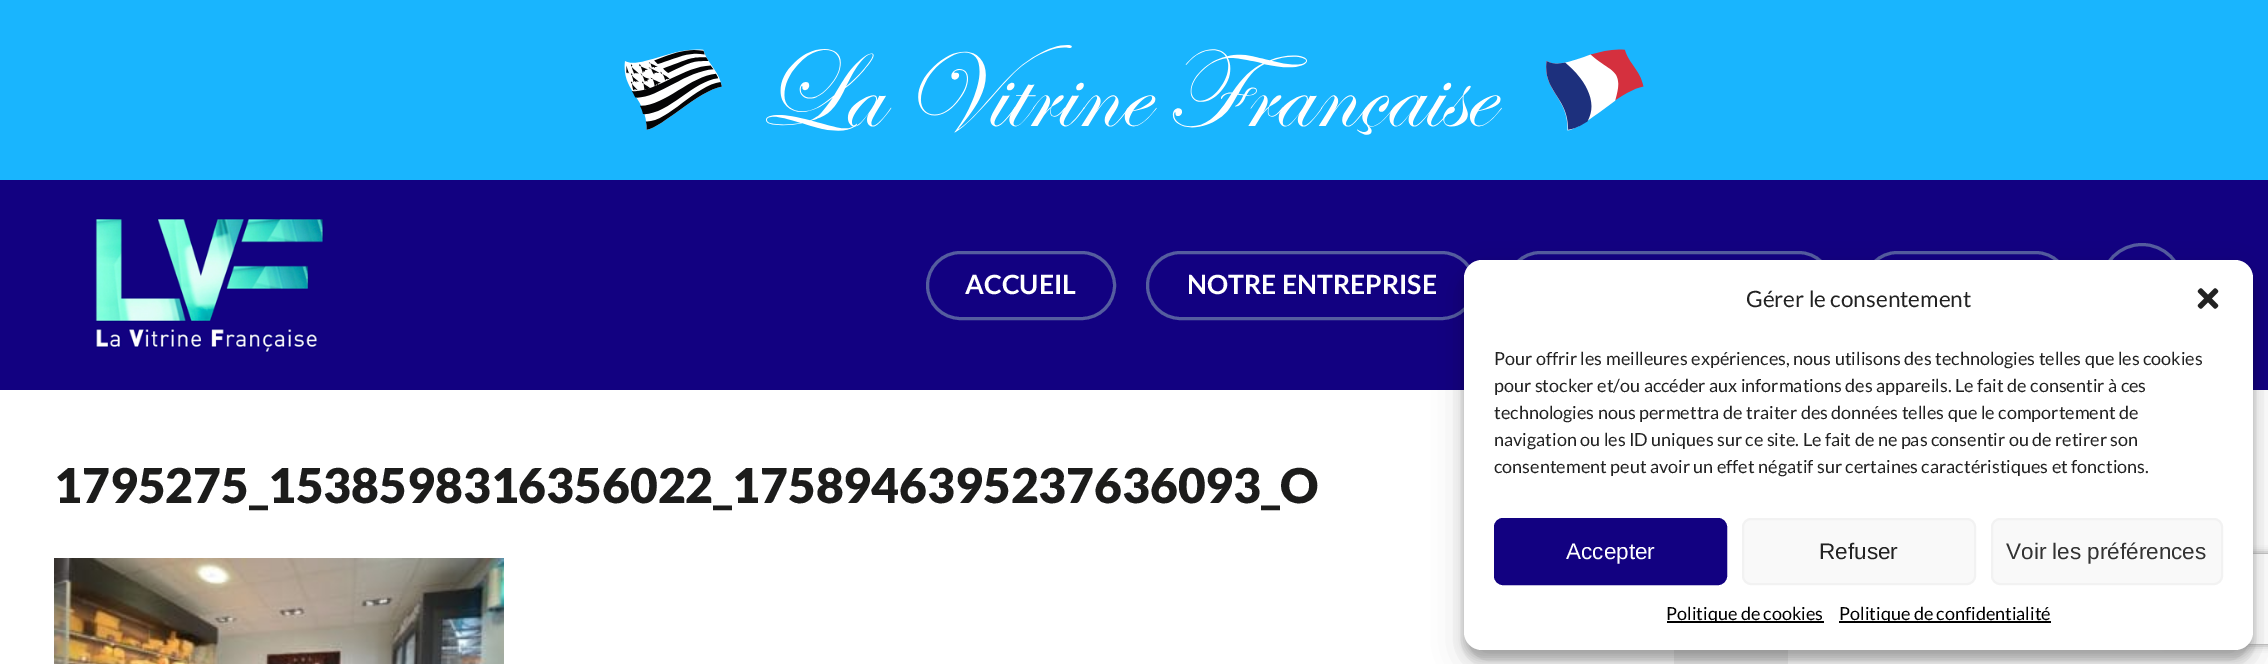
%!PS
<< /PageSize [2268 664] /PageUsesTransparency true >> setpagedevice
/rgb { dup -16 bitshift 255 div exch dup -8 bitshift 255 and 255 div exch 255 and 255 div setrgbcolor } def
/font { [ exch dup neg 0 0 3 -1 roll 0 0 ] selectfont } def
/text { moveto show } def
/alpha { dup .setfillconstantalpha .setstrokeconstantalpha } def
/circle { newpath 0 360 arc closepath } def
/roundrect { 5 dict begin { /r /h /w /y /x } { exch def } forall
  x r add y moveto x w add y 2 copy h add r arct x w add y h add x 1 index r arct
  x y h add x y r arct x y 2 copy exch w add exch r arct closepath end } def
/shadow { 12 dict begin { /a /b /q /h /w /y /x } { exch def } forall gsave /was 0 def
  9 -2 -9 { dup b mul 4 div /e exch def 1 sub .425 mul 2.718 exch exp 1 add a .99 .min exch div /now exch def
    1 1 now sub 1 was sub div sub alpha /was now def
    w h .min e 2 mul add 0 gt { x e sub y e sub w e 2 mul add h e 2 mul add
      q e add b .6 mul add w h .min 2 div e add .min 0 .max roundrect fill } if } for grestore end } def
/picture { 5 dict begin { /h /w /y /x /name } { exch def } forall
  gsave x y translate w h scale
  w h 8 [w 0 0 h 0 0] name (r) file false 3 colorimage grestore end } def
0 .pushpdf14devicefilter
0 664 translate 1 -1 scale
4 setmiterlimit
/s1 { /Lato-Bold 26.5 font 16#FFFFFF rgb } def
/s2 { /Lato-Black 48 font 16#1C1C1B rgb } def
/s3 { /Lato-Regular 22.5 font 16#222222 rgb } def
/s4 { /Lato-Regular 18 font 16#222222 rgb } def
/s5 { /LiberationSans-Regular 22.5 font 16#FFFFFF rgb } def
/s6 { /LiberationSans-Regular 22.5 font 16#222222 rgb } def
/s7 { /LiberationSans-Regular 22.5 font 16#333333 rgb } def
/s8 { /Lato-Regular 18 font 16#000000 rgb } def
16#FFFFFF rgb
0 0 2268 664 rectfill
16#19B5FE rgb
0 0 2268 180 rectfill
(pic1.raw) 624 45 1020 90 picture
16#120181 rgb
0 180 2268 210 rectfill
(pic2.raw) 95 218 229 135 picture
16#555D9F rgb
3 setlinewidth
927.5 252.5 187 66 33 roundrect stroke
s1
(ACCUEIL) 965 294 text
16#555D9F rgb
1147.5 252.5 327 66 33 roundrect stroke
s1
(NOTRE ENTREPRISE) 1187 294 text
16#555D9F rgb
1507.5 252.5 324 66 33 roundrect stroke
1864.5 252.5 204 66 33 roundrect stroke
2142 285 40.5 circle stroke
s2
(1795275_1538598316356022_1758946395237636093_O) 54 503 text
(pic3.raw) 54 558 450 106 picture
16#EFEFEF rgb
1674 650 114 14 rectfill
16#000000 rgb
1464 269 789 390 18 4.5 0.23 shadow
1464 275 789 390 18 15 0.19 shadow
gsave
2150 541 moveto 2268 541 lineto 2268 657 lineto 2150 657 lineto closepath 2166 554 moveto 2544 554 lineto 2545.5 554 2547 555.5 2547 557 curveto 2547 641 lineto 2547 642.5 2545.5 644 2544 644 curveto 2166 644 lineto 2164.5 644 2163 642.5 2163 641 curveto 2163 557 lineto 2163 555.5 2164.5 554 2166 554 curveto closepath eoclip newpath
16#808080 rgb
2163 554 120 90 3 4 1 shadow
grestore
16#FFFFFF rgb
1464 260 789 390 18 roundrect fill
s3
(Gérer le consentement) 1746 307 text
(pic4.raw) 2197 288 22 21 picture
s4
(Pour offrir les meilleures expériences, nous utilisons des technologies telles que les cookies) 1494 365 text
(pour stocker et/ou accéder aux informations des appareils. Le fait de consentir à ces) 1494 392 text
(technologies nous permettra de traiter des données telles que le comportement de) 1494 419 text
(navigation ou les ID uniques sur ce site. Le fait de ne pas consentir ou de retirer son) 1494 446 text
(consentement peut avoir un effet négatif sur certaines caractéristiques et fonctions.) 1494 473 text
16#120181 rgb
1495 519 231 65 8 roundrect gsave fill grestore
2 setlinewidth
stroke
s5
(Accepter) 1566 559 text
16#F9F9F9 rgb
1743 519 232 65 8 roundrect gsave fill grestore
16#F2F2F2 rgb
stroke
s6
(Refuser) 1819 559 text
16#F9F9F9 rgb
1992 519 230 65 8 roundrect gsave fill grestore
16#F2F2F2 rgb
stroke
s7
(Voir les préférences) 2006 559 text
16#000000 rgb
1667 621 157 2 rectfill
s8
(Politique de cookies) 1666 620 text
1839 621 212 2 rectfill
(Politique de confidentialité) 1839 620 text
.poppdf14devicefilter showpage
